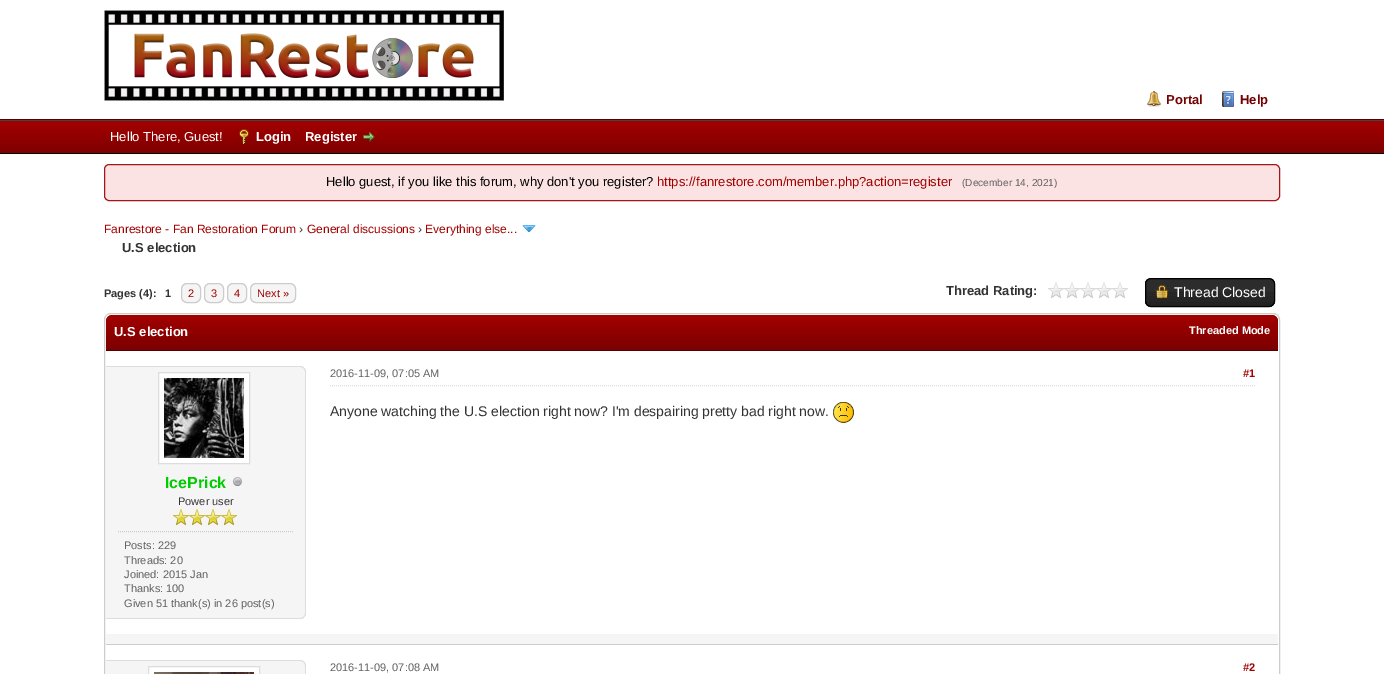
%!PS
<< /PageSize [1384 674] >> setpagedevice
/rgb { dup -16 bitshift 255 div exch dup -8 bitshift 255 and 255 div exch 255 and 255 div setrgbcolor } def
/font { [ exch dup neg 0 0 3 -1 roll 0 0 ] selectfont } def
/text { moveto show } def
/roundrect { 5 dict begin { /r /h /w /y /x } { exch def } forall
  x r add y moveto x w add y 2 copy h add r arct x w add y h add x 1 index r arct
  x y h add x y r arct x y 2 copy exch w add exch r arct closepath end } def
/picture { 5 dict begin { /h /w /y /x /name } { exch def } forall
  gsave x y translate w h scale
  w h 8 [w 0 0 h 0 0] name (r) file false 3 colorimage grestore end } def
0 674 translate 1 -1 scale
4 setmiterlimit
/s1 { /LiberationSans-Bold 13 font 16#750000 rgb } def
/s2 { /LiberationSans-Regular 13 font 16#FFFFFF rgb } def
/s3 { /LiberationSans-Bold 13 font 16#FFFFFF rgb } def
/s4 { /LiberationSans-Regular 13 font 16#000000 rgb } def
/s5 { /LiberationSans-Regular 13 font 16#A20000 rgb } def
/s6 { /LiberationSans-Regular 10.1 font 16#636161 rgb } def
/s7 { /LiberationSans-Regular 12 font 16#A20000 rgb } def
/s8 { /LiberationSans-Regular 12 font 16#333333 rgb } def
/s9 { /LiberationSans-Bold 13 font 16#333333 rgb } def
/s10 { /LiberationSans-Bold 11 font 16#333333 rgb } def
/s11 { /LiberationSans-Regular 11 font 16#A20000 rgb } def
/s12 { /LiberationSans-Regular 14 font 16#FFFFFF rgb } def
/s13 { /LiberationSans-Bold 11 font 16#FFFFFF rgb } def
/s14 { /LiberationSans-Regular 11 font 16#636161 rgb } def
/s15 { /LiberationSans-Bold 11 font 16#A20000 rgb } def
/s16 { /LiberationSans-Regular 14 font 16#333333 rgb } def
/s17 { /LiberationSans-Bold 16 font 16#00CC00 rgb } def
/s18 { /LiberationSans-Regular 11 font 16#333333 rgb } def
16#FFFFFF rgb
0 0 1384 674 rectfill
16#550000 rgb
0 119 1384 1 rectfill
(pic1.raw) 104 10 400 91 picture
(pic2.raw) 1147 91 14 16 picture
s1
(Portal) 1166 104 text
(pic3.raw) 1222 91 12 16 picture
(Help) 1240 104 text
(pic4.raw) 0 121 1384 32 picture
16#444444 rgb
0 120 1384 1 rectfill
16#000000 rgb
0 153 1384 1 rectfill
s2
(Hello There, Guest!) 110 141 text
(pic5.raw) 239 129 10 15 picture
s3
(Login) 256 141 text
(Register) 305 141 text
(pic6.raw) 363 132 12 10 picture
16#FBE3E4 rgb
104.5 164.5 1175 36 4.5 roundrect gsave fill grestore
16#A5161A rgb
stroke
s4
(Hello guest, if you like this forum, why don't you register?) 326 186 text
s5
(https://fanrestore.com/member.php?action=register) 657 186 text
s6
(\(December 14, 2021\)) 962 186 text
s7
(Fanrestore - Fan Restoration Forum) 104 233 text
s8
(›) 299 233 text
s7
(General discussions) 307 233 text
s8
(›) 418 233 text
s7
(Everything else...) 425 233 text
(pic7.raw) 522 225 14 7 picture
s9
(U.S election) 122 252 text
s10
(Pages \(4\):) 104 297 text
(1) 165 297 text
16#F5F5F5 rgb
181.5 283.5 19 19 5.5 roundrect gsave fill grestore
16#CCCCCC rgb
stroke
s11
(2) 188 297 text
16#F5F5F5 rgb
204.5 283.5 19 19 5.5 roundrect gsave fill grestore
16#CCCCCC rgb
stroke
s11
(3) 211 297 text
16#F5F5F5 rgb
227.5 283.5 19 19 5.5 roundrect gsave fill grestore
16#CCCCCC rgb
stroke
s11
(4) 234 297 text
16#F5F5F5 rgb
250.5 283.5 45 19 5.5 roundrect gsave fill grestore
16#CCCCCC rgb
stroke
s11
(Next ») 257 297 text
s9
(Thread Rating:) 946 295 text
(pic8.raw) 1048 282 80 16 picture
(pic9.raw) 1145 279 130 28 picture
16#000000 rgb
1145.5 278.5 129 28 5.5 roundrect stroke
(pic10.raw) 1156 285 12 14 picture
s12
(Thread Closed) 1174 297 text
16#CCCCCC rgb
104.5 313.5 1175 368 6.5 roundrect stroke
(pic11.raw) 106 315 1172 35 picture
16#550000 rgb
106 350 1172 1 rectfill
s3
(U.S election) 114 336 text
s13
(Threaded Mode) 1189 334 text
16#DDDDDD rgb
[1 1] 0 setdash
330 385.5 moveto 1256 385.5 lineto stroke
s14
(2016-11-09, 07:05 AM) 330 377 text
s15
(#1) 1243 377 text
s16
(Anyone watching the U.S election right now? I'm despairing pretty bad right now.) 330 416 text
(pic12.raw) 833 402 21 21 picture
16#F5F5F5 rgb
106 366 moveto 300 366 lineto 303.5 366 306 368.5 306 372 curveto 306 613 lineto 306 616.5 303.5 619 300 619 curveto 106 619 lineto closepath fill
16#DDDDDD rgb
106 366 moveto 300 366 lineto 303 366 306 369 306 372 curveto 306 613 lineto 306 616 303 619 300 619 curveto 106 619 lineto closepath 106 367 moveto 300 367 lineto 303 367 305 369 305 372 curveto 305 613 lineto 305 616 303 618 300 618 curveto 106 618 lineto closepath eofill
16#FFFFFF rgb
158.5 372.5 moveto 249.5 372.5 lineto 249.5 463.5 lineto 158.5 463.5 lineto closepath gsave fill grestore
16#DDDDDD rgb
[] 0 setdash
stroke
(pic13.raw) 164 378 80 80 picture
s17
(IcePrick) 165 488 text
(pic14.raw) 233 477 9 9 picture
s18
(Power user) 178 505 text
(pic15.raw) 173 509 16 16 picture
(pic15.raw) 189 509 16 16 picture
(pic15.raw) 205 509 16 16 picture
(pic15.raw) 221 509 16 16 picture
16#CCCCCC rgb
[1 1] 0 setdash
118 531.5 moveto 293 531.5 lineto stroke
s14
(Posts: 229) 124 549 text
(Threads: 20) 124 564 text
(Joined: 2015 Jan) 124 578 text
(Thanks: 100) 124 592 text
(Given 51 thank\(s\) in 26 post\(s\)) 124 607 text
16#F5F5F5 rgb
106 634 1172 10 rectfill
16#CCCCCC rgb
106 644 1172 1 rectfill
16#F5F5F5 rgb
106 660 moveto 300 660 lineto 303.5 660 306 662.5 306 666 curveto 306 674 lineto 306 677.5 303.5 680 300 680 curveto 106 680 lineto closepath fill
16#DDDDDD rgb
106 660 moveto 300 660 lineto 303 660 306 663 306 666 curveto 306 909 lineto 306 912 303 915 300 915 curveto 106 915 lineto closepath 106 661 moveto 300 661 lineto 303 661 305 663 305 666 curveto 305 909 lineto 305 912 303 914 300 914 curveto 106 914 lineto closepath eofill
16#FFFFFF rgb
148.5 666.5 moveto 259.5 666.5 lineto 259.5 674.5 lineto 148.5 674.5 lineto closepath gsave fill grestore
16#DDDDDD rgb
[] 0 setdash
stroke
(pic16.raw) 154 672 100 2 picture
s14
(2016-11-09, 07:08 AM) 330 671 text
s15
(#2) 1243 671 text
showpage
